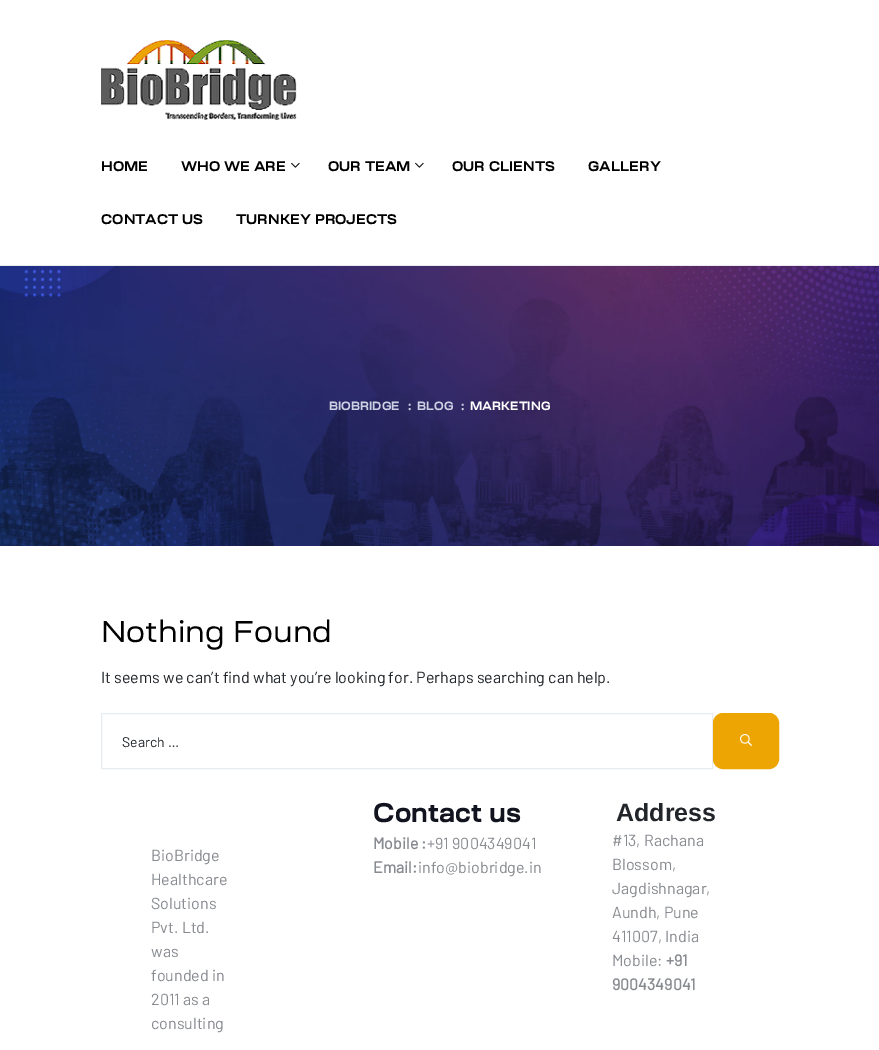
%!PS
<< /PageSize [879 1050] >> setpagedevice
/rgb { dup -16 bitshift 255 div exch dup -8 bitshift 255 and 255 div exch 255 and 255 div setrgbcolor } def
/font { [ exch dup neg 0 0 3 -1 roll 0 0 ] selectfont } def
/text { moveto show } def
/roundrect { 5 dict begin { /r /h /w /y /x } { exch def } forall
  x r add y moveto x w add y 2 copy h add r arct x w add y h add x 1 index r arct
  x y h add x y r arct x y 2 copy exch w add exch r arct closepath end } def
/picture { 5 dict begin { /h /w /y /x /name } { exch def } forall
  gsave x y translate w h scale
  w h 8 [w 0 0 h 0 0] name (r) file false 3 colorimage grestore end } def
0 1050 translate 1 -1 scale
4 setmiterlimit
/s1 { /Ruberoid-Bold 14 font 16#000000 rgb } def
/s2 { /Ruberoid-Bold 12 font 16#CBD0E3 rgb } def
/s3 { /Ruberoid-Bold 12 font 16#FFFFFF rgb } def
/s4 { /Ruberoid-Regular 30 font 16#000000 rgb } def
/s5 { /Barlow-Regular 16 font 16#212529 rgb } def
/s6 { /Barlow-Regular 14 font 16#212529 rgb } def
/s7 { /Barlow-Regular 16 font 16#888B8F rgb } def
/s8 { /Ruberoid-Bold 27 font 16#11141F rgb } def
/s9 { /Barlow-Bold 16 font 16#888B8F rgb } def
/s10 { /LiberationSans-Bold 25 font 16#212529 rgb } def
16#FFFFFF rgb
0 0 879 1050 rectfill
16#E8ECEF rgb
0 265 879 1 rectfill
(pic1.raw) 101 40 196 80 picture
s1
(HOME) 101 171 text
(WHO WE ARE) 181 171 text
(pic2.raw) 291 162 9 6 picture
(OUR TEAM) 328 171 text
(pic2.raw) 415 162 9 6 picture
(OUR CLIENTS) 452 171 text
(GALLERY) 588 171 text
(CONTACT US) 101 224 text
(TURNKEY PROJECTS) 236 224 text
(pic3.raw) 0 266 879 280 picture
s2
(BIOBRIDGE) 329 410 text
(:) 408 410 text
(BLOG) 417 410 text
(:) 461 410 text
s3
(MARKETING) 470 410 text
s4
(Nothing Found) 101 642 text
s5
(It seems we can’t find what you’re looking for. Perhaps searching can help.) 101 683 text
16#E8ECEF rgb
101.5 713.5 611 55 rectstroke
s6
(Search …) 122 747 text
16#EDA503 rgb
713.5 713.5 65 55 9.5 roundrect gsave fill grestore
stroke
(pic4.raw) 740 734 12 12 picture
s7
(BioBridge) 151 861 text
(Healthcare) 151 885 text
(Solutions) 151 909 text
(Pvt. Ltd.) 151 933 text
(was) 151 957 text
(founded in) 151 981 text
(2011 as a) 151 1005 text
(consulting) 151 1029 text
s8
(Contact us) 373 822 text
s9
(Mobile :) 373 849 text
s7
(+91 9004349041) 427 849 text
s9
(Email:) 373 873 text
s7
(info@biobridge.in) 418 873 text
s10
(Address) 616 821 text
s7
(#13, Rachana) 612 846 text
(Blossom,) 612 870 text
(Jagdishnagar,) 612 894 text
(Aundh, Pune) 612 918 text
(411007, India) 612 942 text
(Mobile:) 612 966 text
s9
(+91) 666 966 text
(9004349041) 612 990 text
showpage
